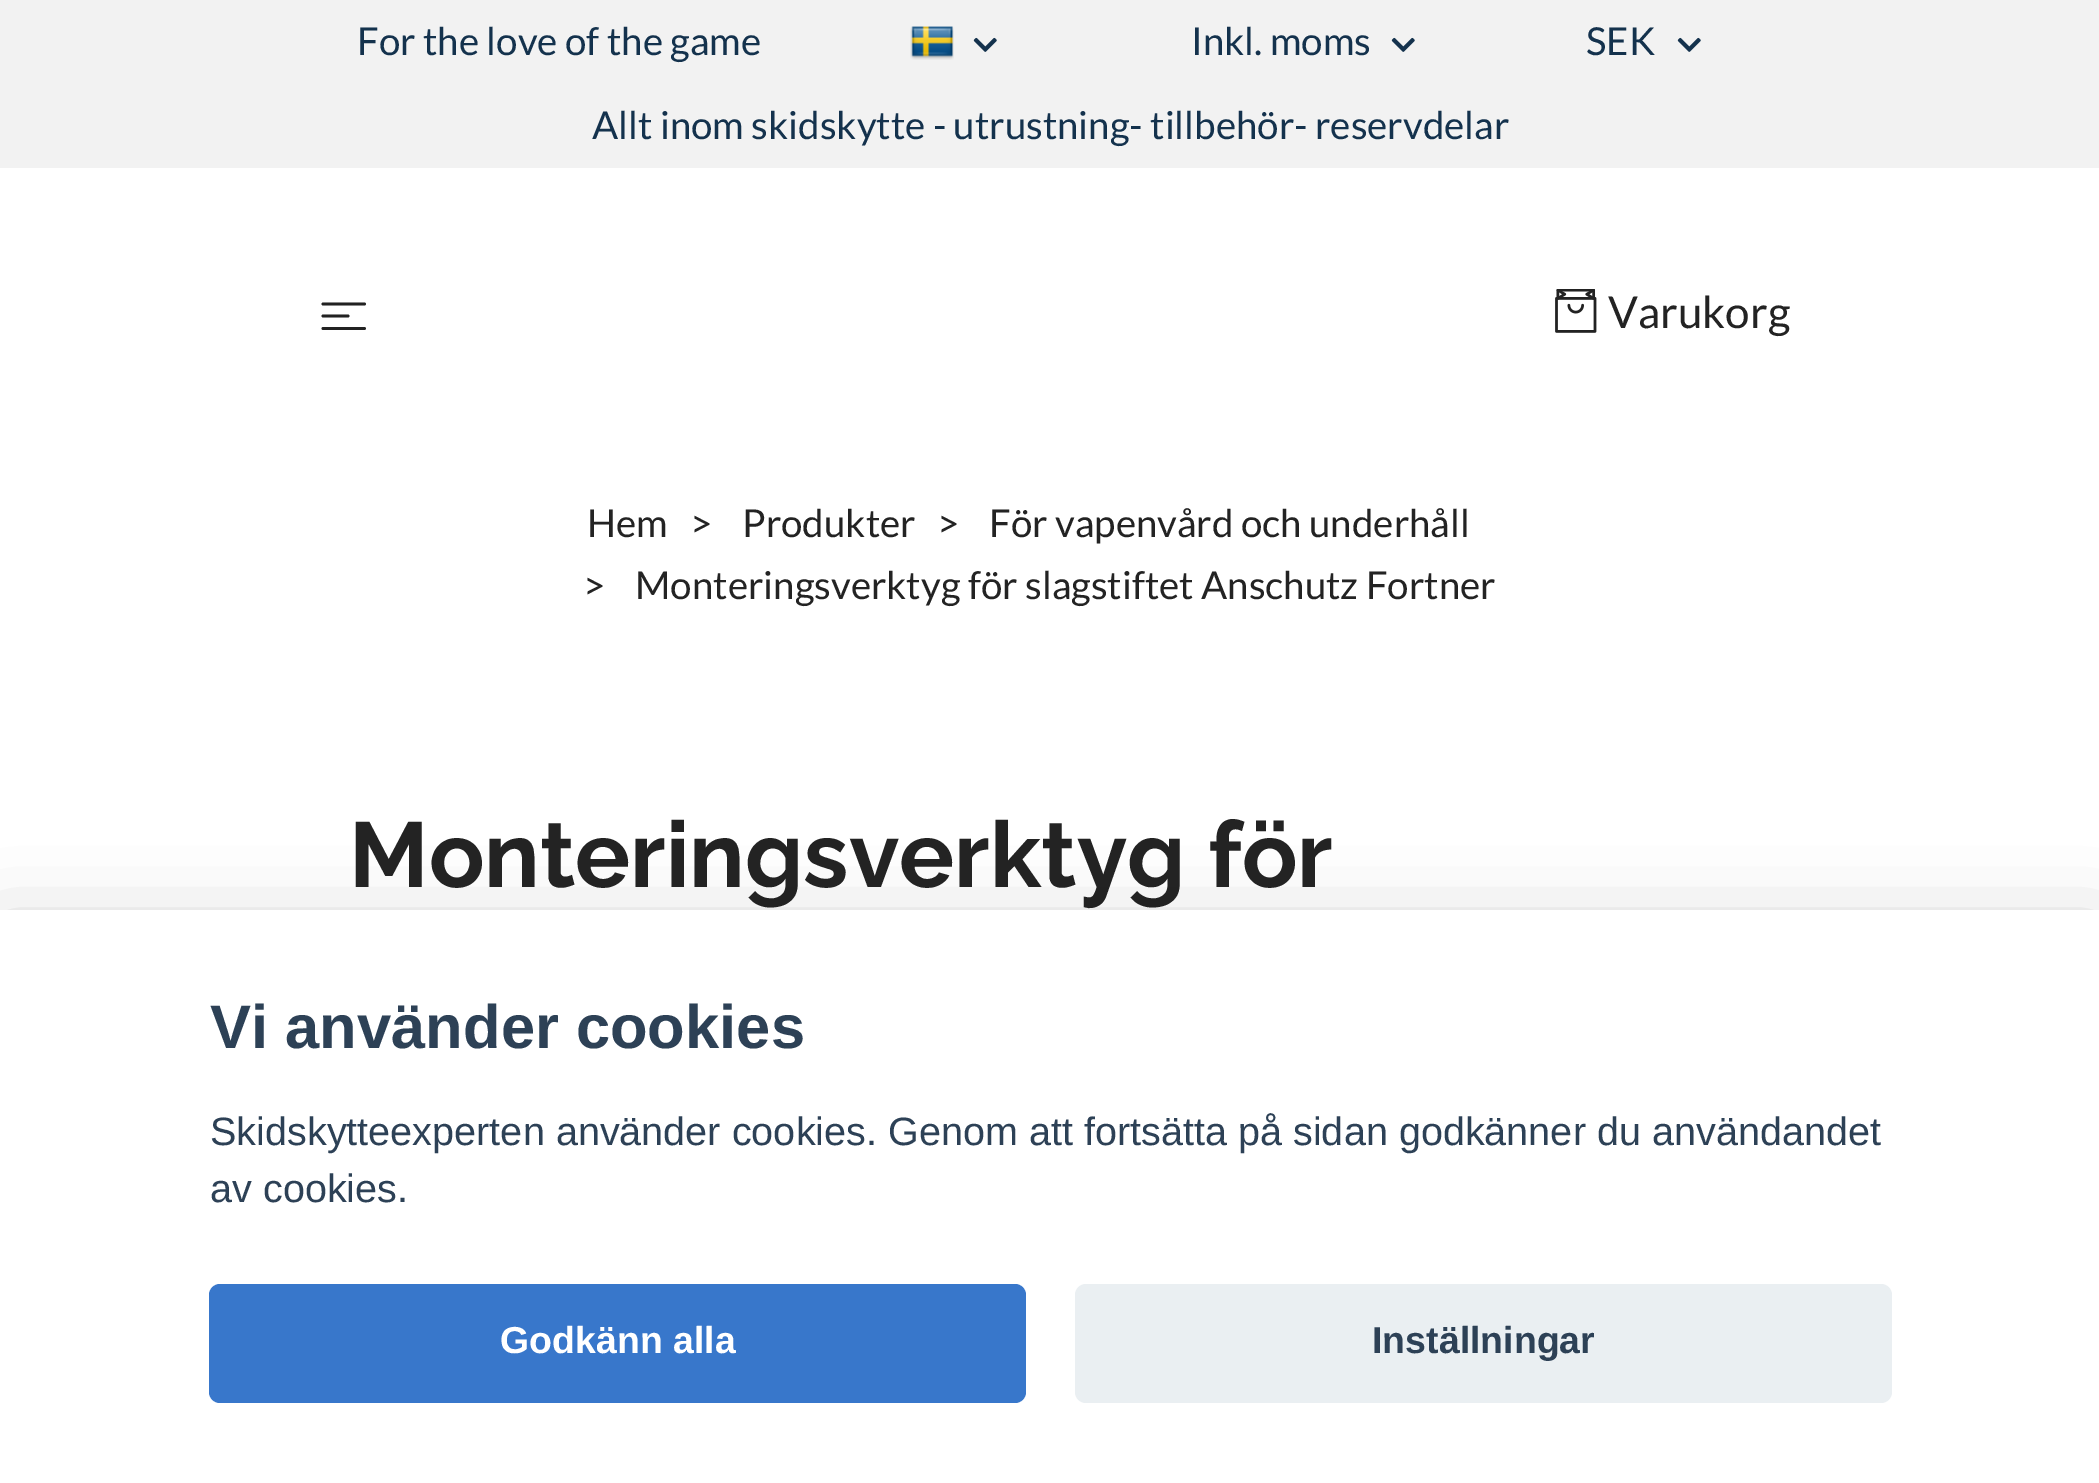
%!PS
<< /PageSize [2099 1483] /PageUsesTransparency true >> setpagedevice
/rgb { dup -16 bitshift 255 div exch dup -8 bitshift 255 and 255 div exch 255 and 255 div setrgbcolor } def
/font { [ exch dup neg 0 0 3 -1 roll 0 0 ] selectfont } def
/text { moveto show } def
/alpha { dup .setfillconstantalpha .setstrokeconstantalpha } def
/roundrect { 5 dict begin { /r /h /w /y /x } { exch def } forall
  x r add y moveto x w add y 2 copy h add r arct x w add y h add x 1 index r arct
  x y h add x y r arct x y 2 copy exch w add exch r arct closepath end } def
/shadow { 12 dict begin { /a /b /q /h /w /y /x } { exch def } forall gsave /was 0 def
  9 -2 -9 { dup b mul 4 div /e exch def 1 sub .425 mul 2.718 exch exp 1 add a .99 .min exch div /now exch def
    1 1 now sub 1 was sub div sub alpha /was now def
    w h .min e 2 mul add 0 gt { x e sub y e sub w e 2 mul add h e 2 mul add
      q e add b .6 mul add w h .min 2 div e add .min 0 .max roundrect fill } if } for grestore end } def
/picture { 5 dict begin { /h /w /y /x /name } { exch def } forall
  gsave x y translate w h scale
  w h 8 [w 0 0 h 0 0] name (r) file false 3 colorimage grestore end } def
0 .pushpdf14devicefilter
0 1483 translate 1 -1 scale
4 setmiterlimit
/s1 { /Lato-Regular 38.5 font 16#14324D rgb } def
/s2 { /Lato-Regular 44 font 16#232323 rgb } def
/s3 { /Lato-Regular 38.5 font 16#232323 rgb } def
/s4 { /Raleway-Bold 92 font 16#232323 rgb } def
/s5 { /LiberationSans-Bold 61.5 font 16#2D4156 rgb } def
/s6 { /LiberationSans-Regular 39.6 font 16#2D4156 rgb } def
/s7 { /LiberationSans-Bold 37.5 font 16#FFFFFF rgb } def
/s8 { /LiberationSans-Bold 37.5 font 16#2D4156 rgb } def
16#FFFFFF rgb
0 0 2099 1483 rectfill
16#F2F2F2 rgb
0 0 2099 168 rectfill
s1
(For the love of the game) 357 55 text
(pic1.raw) 910 26 44 34 picture
(pic2.raw) 973 37 24 15 picture
(Inkl. moms) 1191 55 text
(pic2.raw) 1391 37 24 15 picture
(SEK) 1586 55 text
(pic2.raw) 1677 37 24 15 picture
(Allt inom skidskytte - utrustning- tillbehör- reservdelar) 592 139 text
16#222222 rgb
2.8 setlinewidth
1 setlinecap
1 setlinejoin
323 304 moveto 364.5 304 lineto 323 316 moveto 348 316 lineto 323 328.5 moveto 364.5 328.5 lineto stroke
(pic3.raw) 1555 289 42 44 picture
s2
(Varukorg) 1608 328 text
s3
(Hem) 587 537 text
(>) 690 537 text
(Produkter) 742 537 text
(>) 937 537 text
(För vapenvård och underhåll) 989 537 text
(>) 583 599 text
(Monteringsverktyg för slagstiftet Anschutz Fortner) 635 599 text
s4
(Monteringsverktyg för) 349 887 text
16#020203 rgb
0 938 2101 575 0 41 0.28 shadow
16#FFFFFF rgb
0 910 2099 573 rectfill
s5
(Vi använder cookies) 210 1048 text
s6
(Skidskytteexperten använder cookies. Genom att fortsätta på sidan godkänner du användandet) 210 1145 text
(av cookies.) 210 1202 text
16#3877CB rgb
209 1284 817 119 11 roundrect fill
s7
(Godkänn alla) 500 1353 text
16#EAEFF2 rgb
1075 1284 817 119 11 roundrect fill
s8
(Inställningar) 1372 1353 text
.poppdf14devicefilter showpage
